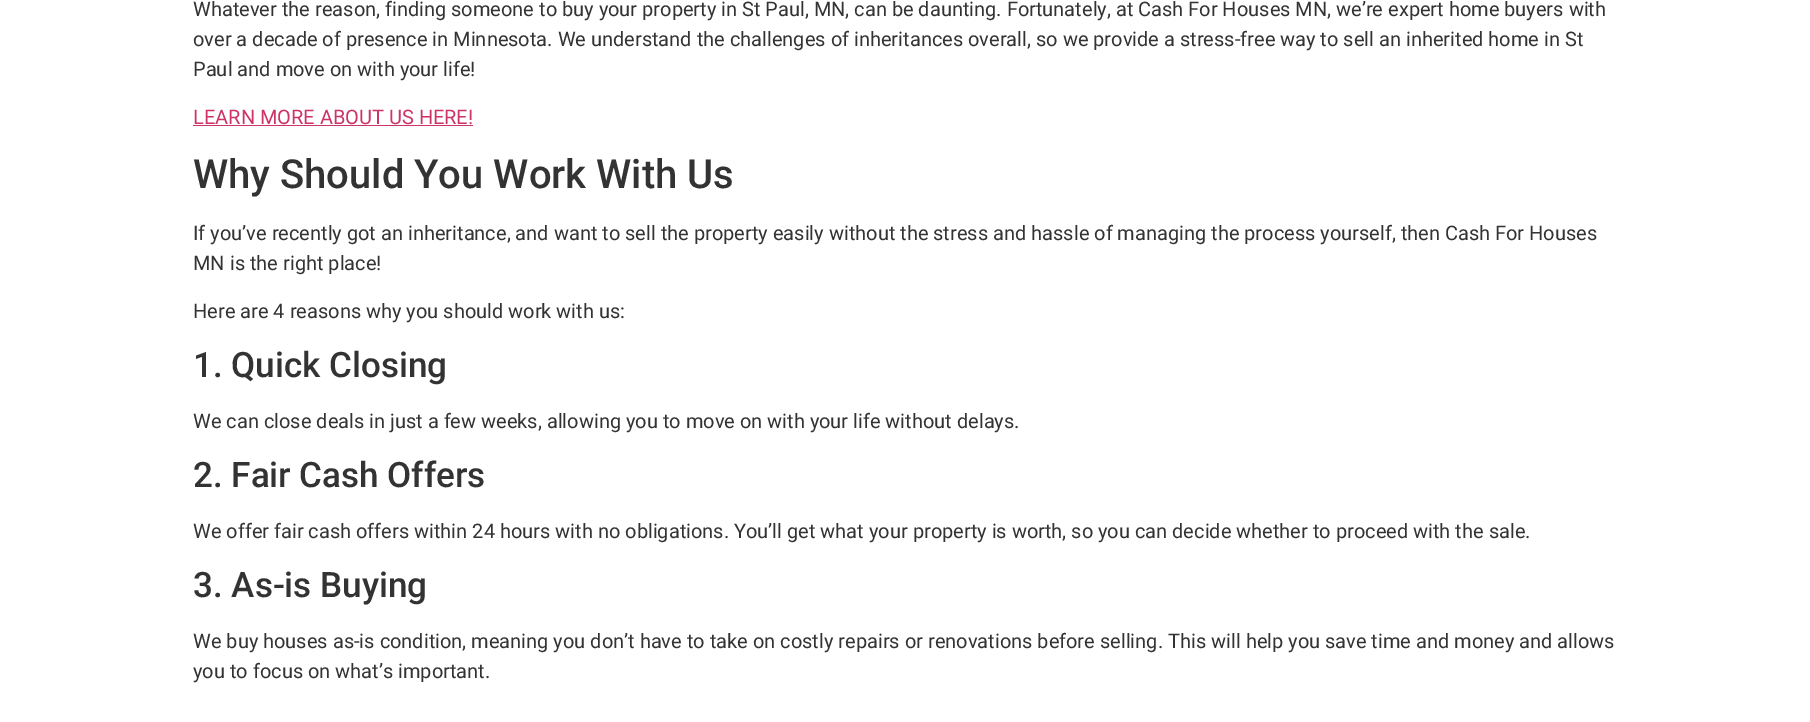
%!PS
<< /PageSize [1810 722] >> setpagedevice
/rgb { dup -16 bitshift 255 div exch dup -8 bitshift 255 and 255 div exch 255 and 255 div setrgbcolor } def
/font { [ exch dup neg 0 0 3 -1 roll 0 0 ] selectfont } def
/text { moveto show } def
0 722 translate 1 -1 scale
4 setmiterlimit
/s1 { /Roboto-Regular 20 font 16#333333 rgb } def
/s2 { /Roboto-Regular 20 font 16#CC3366 rgb } def
/s3 { /Roboto-Medium 40 font 16#333333 rgb } def
/s4 { /Roboto-Medium 35 font 16#333333 rgb } def
16#FFFFFF rgb
0 0 1810 722 rectfill
s1
(Whatever the reason, finding someone to buy your property in St Paul, MN, can be daunting. Fortunately, at Cash For Houses MN, we’re expert home buyers with) 193 16 text
(over a decade of presence in Minnesota. We understand the challenges of inheritances overall, so we provide a stress-free way to sell an inherited home in St) 193 46 text
(Paul and move on with your life!) 193 76 text
s2
(LEARN MORE ABOUT US HERE!) 193 124 text
193 125 280 1 rectfill
s3
(Why Should You Work With Us) 193 188 text
s1
(If you’ve recently got an inheritance, and want to sell the property easily without the stress and hassle of managing the process yourself, then Cash For Houses) 193 240 text
(MN is the right place!) 193 270 text
(Here are 4 reasons why you should work with us:) 193 318 text
s4
(1. Quick Closing) 193 377 text
s1
(We can close deals in just a few weeks, allowing you to move on with your life without delays.) 193 428 text
s4
(2. Fair Cash Offers) 193 487 text
s1
(We offer fair cash offers within 24 hours with no obligations. You’ll get what your property is worth, so you can decide whether to proceed with the sale.) 193 538 text
s4
(3. As-is Buying) 193 597 text
s1
(We buy houses as-is condition, meaning you don’t have to take on costly repairs or renovations before selling. This will help you save time and money and allows) 193 648 text
(you to focus on what’s important.) 193 678 text
showpage
